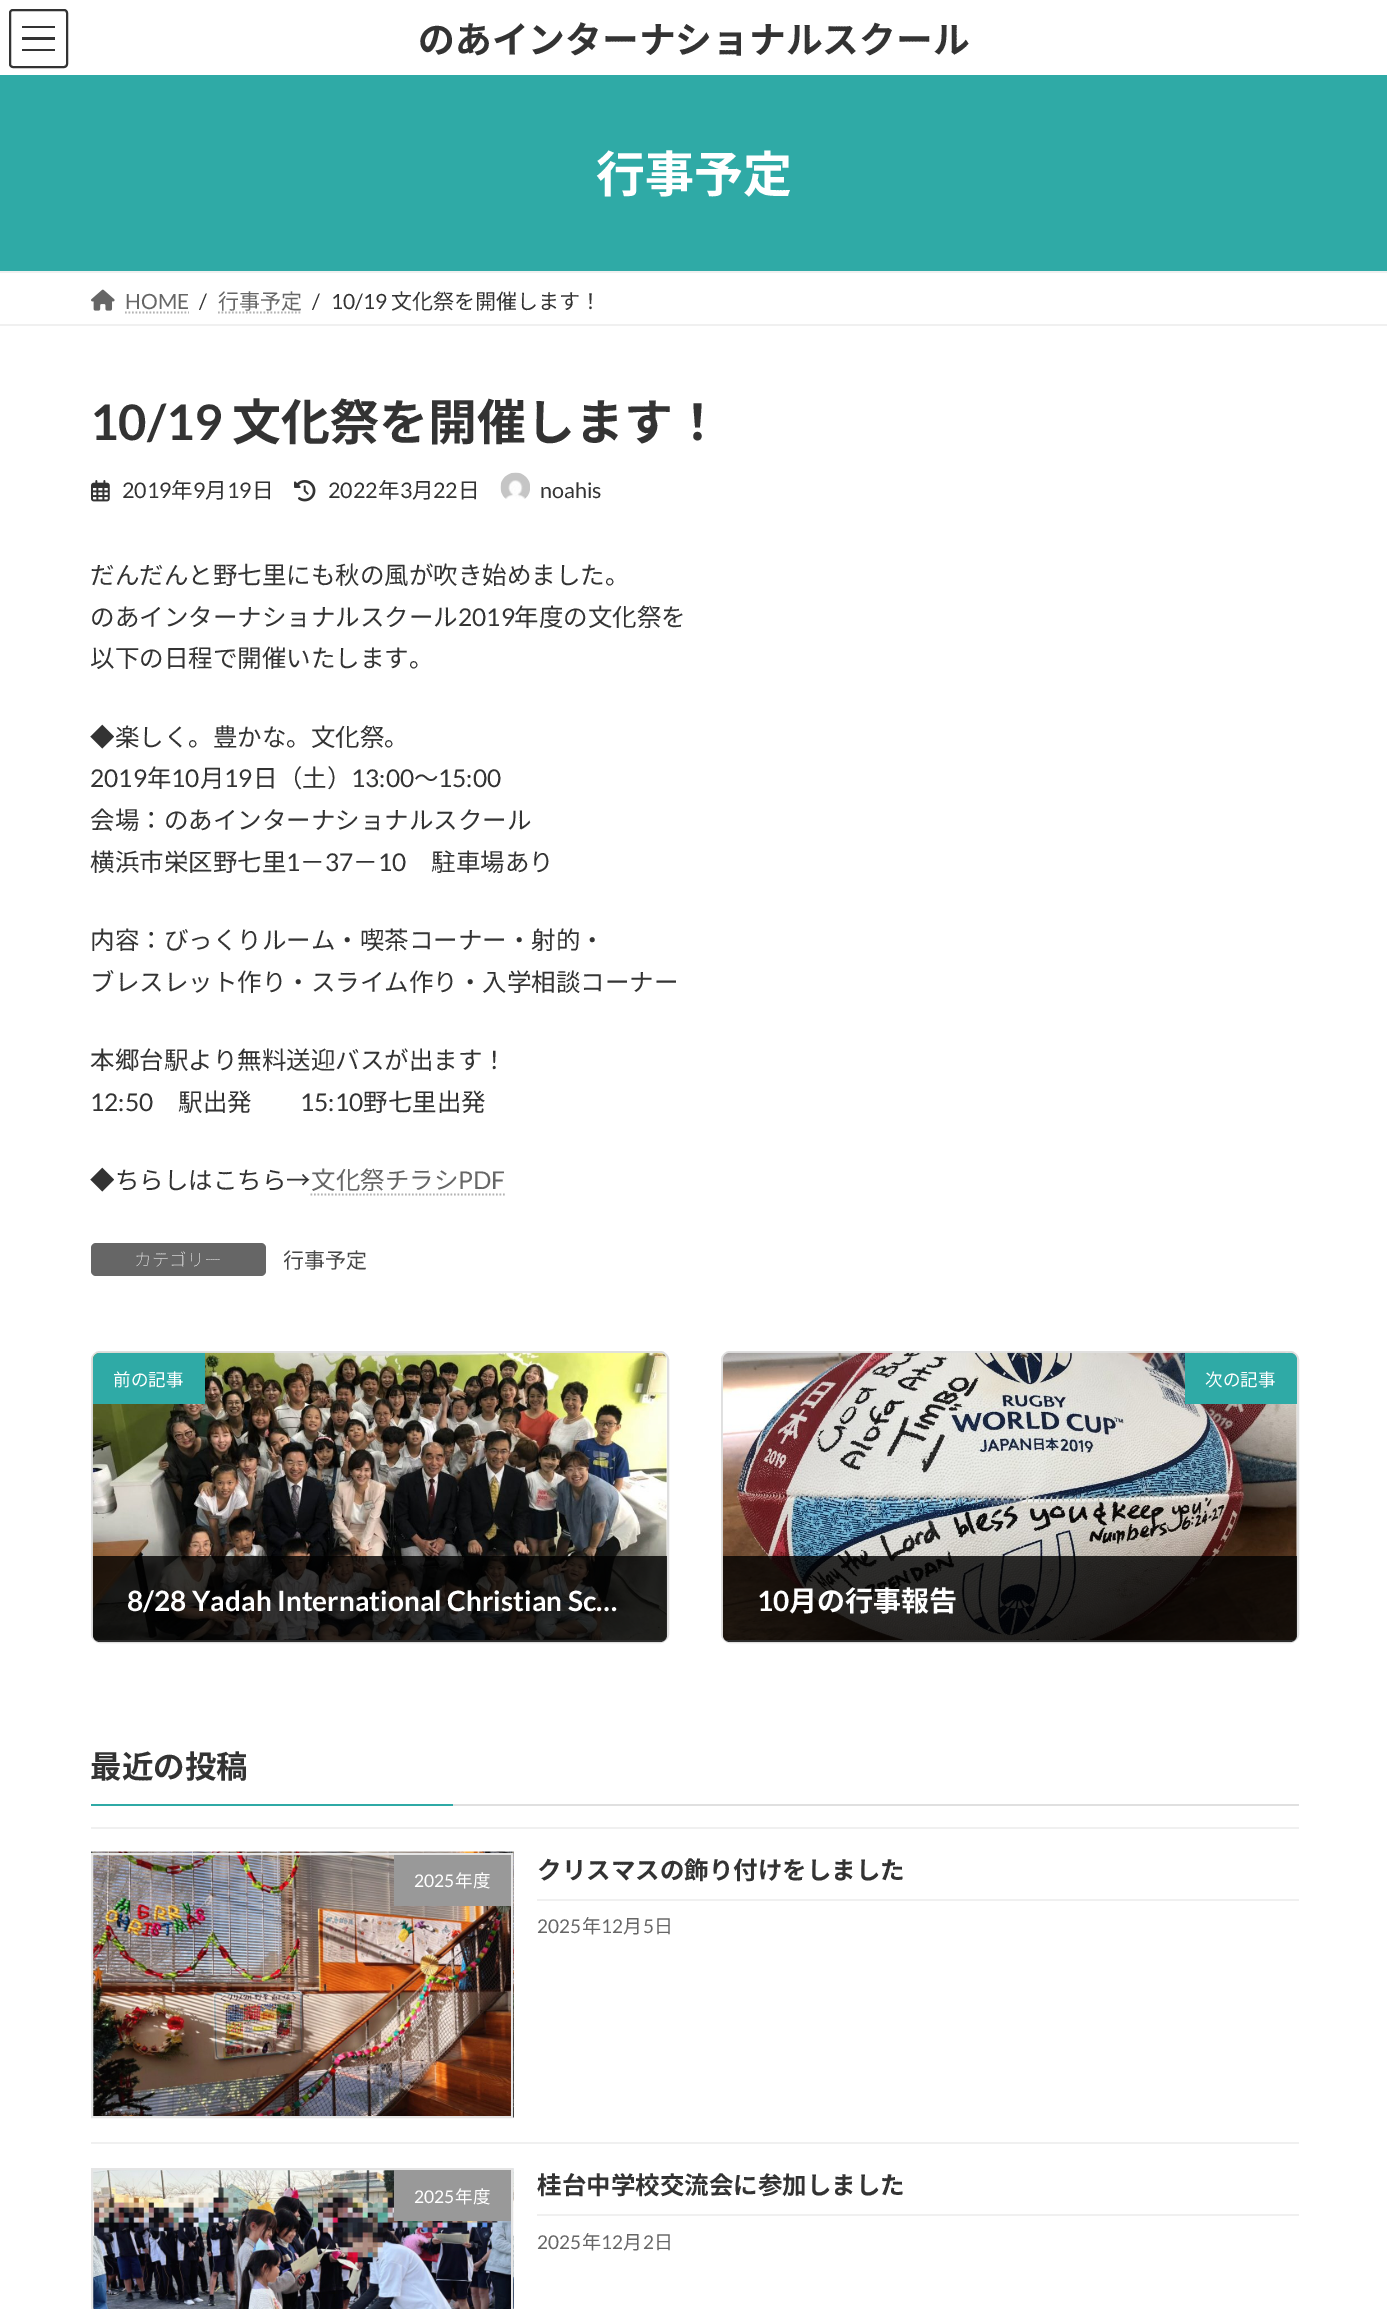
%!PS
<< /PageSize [1387 2309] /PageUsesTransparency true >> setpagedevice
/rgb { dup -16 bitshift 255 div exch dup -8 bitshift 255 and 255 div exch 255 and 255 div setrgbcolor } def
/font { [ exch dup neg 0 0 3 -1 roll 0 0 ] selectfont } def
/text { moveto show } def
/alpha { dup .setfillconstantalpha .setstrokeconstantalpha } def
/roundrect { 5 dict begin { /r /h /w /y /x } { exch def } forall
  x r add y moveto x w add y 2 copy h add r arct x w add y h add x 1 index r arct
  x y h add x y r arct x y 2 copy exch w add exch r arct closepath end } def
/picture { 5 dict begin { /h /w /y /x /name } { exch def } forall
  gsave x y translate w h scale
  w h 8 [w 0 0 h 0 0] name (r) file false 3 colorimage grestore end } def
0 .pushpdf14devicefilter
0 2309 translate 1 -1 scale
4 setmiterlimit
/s1 { /NotoSansJP-Bold 36.75 font 16#333333 rgb } def
/s2 { /NotoSansJP-Bold 49 font 16#FFFFFF rgb } def
/s3 { /Lato-Regular 21 font 16#666666 rgb } def
/s4 { /Lato-Regular 21 font 16#333333 rgb } def
/s5 { /NotoSansJP-Regular 21 font 16#666666 rgb } def
/s6 { /NotoSansJP-Regular 21 font 16#333333 rgb } def
/s7 { /Lato-Bold 49 font 16#333333 rgb } def
/s8 { /NotoSansJP-Bold 49 font 16#333333 rgb } def
/s9 { /Lato-Regular 21.5 font 16#333333 rgb } def
/s10 { /NotoSansJP-Regular 21.5 font 16#333333 rgb } def
/s11 { /NotoSansJP-Regular 24.5 font 16#333333 rgb } def
/s12 { /Lato-Regular 24.5 font 16#333333 rgb } def
/s13 { /NotoSansJP-Regular 24.5 font 16#666666 rgb } def
/s14 { /Lato-Regular 24.5 font 16#666666 rgb } def
/s15 { /NotoSansJP-Thin 17.5 font 16#FFFFFF rgb } def
/s16 { /NotoSansJP-Regular 21 font 16#464646 rgb } def
/s17 { /NotoSansJP-Regular 17.5 font 16#FFFFFF rgb } def
/s18 { /Lato-Bold 28 font 16#FFFFFF rgb } def
/s19 { /NotoSansJP-Bold 28 font 16#FFFFFF rgb } def
/s20 { /NotoSansJP-Bold 31.5 font 16#333333 rgb } def
/s21 { /Lato-Regular 17.5 font 16#FFFFFF rgb } def
/s22 { /NotoSansJP-Bold 24.5 font 16#333333 rgb } def
/s23 { /Lato-Regular 19 font 16#666666 rgb } def
/s24 { /NotoSansJP-Regular 19 font 16#666666 rgb } def
16#FFFFFF rgb
0 0 1387 2309 rectfill
16#333333 rgb
22 26 33 2 rectfill
22 37 33 3 rectfill
22 49 33 2 rectfill
2 setlinewidth
10 10 57 57 3 roundrect stroke
s1
(のあインターナショナルスクール) 418 53 text
16#2FAAA6 rgb
0 75 1387 196 rectfill
s2
(行事予定) 596 192 text
16#F0F0F0 rgb
0 271 1387 2 rectfill
0 324 1387 2 rectfill
(pic1.raw) 91 289 24 22 picture
s3
(HOME) 125 309 text
16#B3B3B3 rgb
1.8 setlinewidth
[1.75 1.75] 0 setdash
125 312.5 moveto 189 312.5 lineto stroke
s4
(/) 199 309 text
s5
(行事予定) 218 309 text
16#B3B3B3 rgb
218 312.5 moveto 302 312.5 lineto stroke
s4
(/) 312 309 text
(10/19) 331 309 text
s6
(文化祭を開催します！) 391 309 text
s7
(10/19) 90 440 text
s8
(文化祭を開催します！) 232 440 text
(pic2.raw) 91 480 19 22 picture
s9
(2019) 122 498 text
s10
(年) 171 498 text
s9
(9) 193 498 text
s10
(月) 205 498 text
s9
(19) 227 498 text
s10
(日) 252 498 text
(pic3.raw) 294 480 22 22 picture
s9
(2022) 328 498 text
s10
(年) 378 498 text
s9
(3) 400 498 text
s10
(月) 412 498 text
s9
(22) 433 498 text
s10
(日) 458 498 text
(pic4.raw) 500 472 30 27 picture
s9
(noahis) 540 498 text
s11
(だんだんと野七里にも秋の風が吹き始めました。) 90 584 text
(のあインターナショナルスクール) 90 626 text
s12
(2019) 458 626 text
s11
(年度の文化祭を) 514 626 text
(以下の日程で開催いたします。) 90 667 text
(◆楽しく。豊かな。文化祭。) 90 746 text
s12
(2019) 90 787 text
s11
(年) 147 787 text
s12
(10) 171 787 text
s11
(月) 200 787 text
s12
(19) 224 787 text
s11
(日（土）) 253 787 text
s12
(13:00) 351 787 text
s11
(～) 414 787 text
s12
(15:00) 438 787 text
s11
(会場：のあインターナショナルスクール) 90 829 text
(横浜市栄区野七里) 90 871 text
s12
(1) 286 871 text
s11
(－) 300 871 text
s12
(37) 325 871 text
s11
(－) 353 871 text
s12
(10) 378 871 text
s11
(駐車場あり) 431 871 text
(内容：びっくりルーム・喫茶コーナー・射的・) 90 949 text
(ブレスレット作り・スライム作り・入学相談コーナー) 90 991 text
(本郷台駅より無料送迎バスが出ます！) 90 1069 text
s12
(12:50) 90 1111 text
s11
(駅出発) 178 1111 text
s12
(15:10) 300 1111 text
s11
(野七里出発) 363 1111 text
(◆ちらしはこちら→) 90 1189 text
s13
(文化祭チラシ) 311 1189 text
s14
(PDF) 458 1189 text
16#B3B3B3 rgb
310.5 1194.5 moveto 505 1194.5 lineto stroke
16#666666 rgb
91 1243 175 33 5 roundrect fill
s15
(カテゴリー) 134 1266 text
gsave
284 1243 1015 29 rectclip
s16
(行事予定) 283 1268 text
grestore
16#DFDFDF rgb
2 setlinewidth
[] 0 setdash
92 1352 576 290 8 roundrect stroke
(pic5.raw) 92 1352 575 290 picture
gsave
93 1353 574 289 7 roundrect clip newpath
16#E5E5E5 rgb
93 1640 574 2 rectfill
grestore
16#2FAAA6 rgb
100 1353 moveto 205 1353 lineto 205 1404 lineto 93 1404 lineto 93 1360 lineto 93 1356 96 1353 100 1353 curveto closepath fill
s17
(前の記事) 113 1386 text
0.8 alpha
16#000000 rgb
93 1556 moveto 667 1556 lineto 667 1635 lineto 667 1639 664 1642 660 1642 curveto 100 1642 lineto 96 1642 93 1639 93 1635 curveto closepath fill
0.06 alpha
280 1635 52 2 rectfill
1 alpha
s18
(8/28 Yadah International Christian Sc…) 127 1611 text
16#DFDFDF rgb
722 1352 576 290 8 roundrect stroke
(pic6.raw) 722 1352 575 290 picture
gsave
723 1353 574 289 7 roundrect clip newpath
16#E5E5E5 rgb
723 1640 574 2 rectfill
grestore
16#2FAAA6 rgb
1185 1353 moveto 1290 1353 lineto 1294 1353 1297 1356 1297 1360 curveto 1297 1404 lineto 1185 1404 lineto closepath fill
s17
(次の記事) 1205 1386 text
0.8 alpha
16#000000 rgb
723 1556 moveto 1297 1556 lineto 1297 1635 lineto 1297 1639 1294 1642 1290 1642 curveto 730 1642 lineto 726 1642 723 1639 723 1635 curveto closepath fill
1 alpha
s18
(10) 757 1611 text
s19
(月の行事報告) 789 1611 text
16#E0E0E0 rgb
453 1804 846 2 rectfill
s20
(最近の投稿) 90 1778 text
16#2FAAA6 rgb
91 1804 362 2 rectfill
16#F0F0F0 rgb
91 1827 1208 2 rectfill
91 2142 1208 2 rectfill
(pic7.raw) 91 1851 423 267 picture
16#E5E5E5 rgb
92 1854 420 263 rectstroke
16#999999 rgb
394 1855 117 51 rectfill
s21
(2025) 414 1887 text
s17
(年度) 455 1887 text
16#F0F0F0 rgb
537 1899 762 2 rectfill
s22
(クリスマスの飾り付けをしました) 537 1879 text
s23
(2025) 537 1933 text
s24
(年) 582 1933 text
s23
(12) 601 1933 text
s24
(月) 623 1933 text
s23
(5) 643 1933 text
s24
(日) 654 1933 text
(pic8.raw) 93 2168 421 141 picture
16#E5E5E5 rgb
92 2169 420 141 rectstroke
16#999999 rgb
394 2170 117 51 rectfill
s21
(2025) 414 2203 text
s17
(年度) 455 2203 text
16#F0F0F0 rgb
537 2214 762 2 rectfill
s22
(桂台中学校交流会に参加しました) 537 2194 text
s23
(2025) 537 2249 text
s24
(年) 582 2249 text
s23
(12) 601 2249 text
s24
(月) 623 2249 text
s23
(2) 643 2249 text
s24
(日) 654 2249 text
.poppdf14devicefilter showpage
